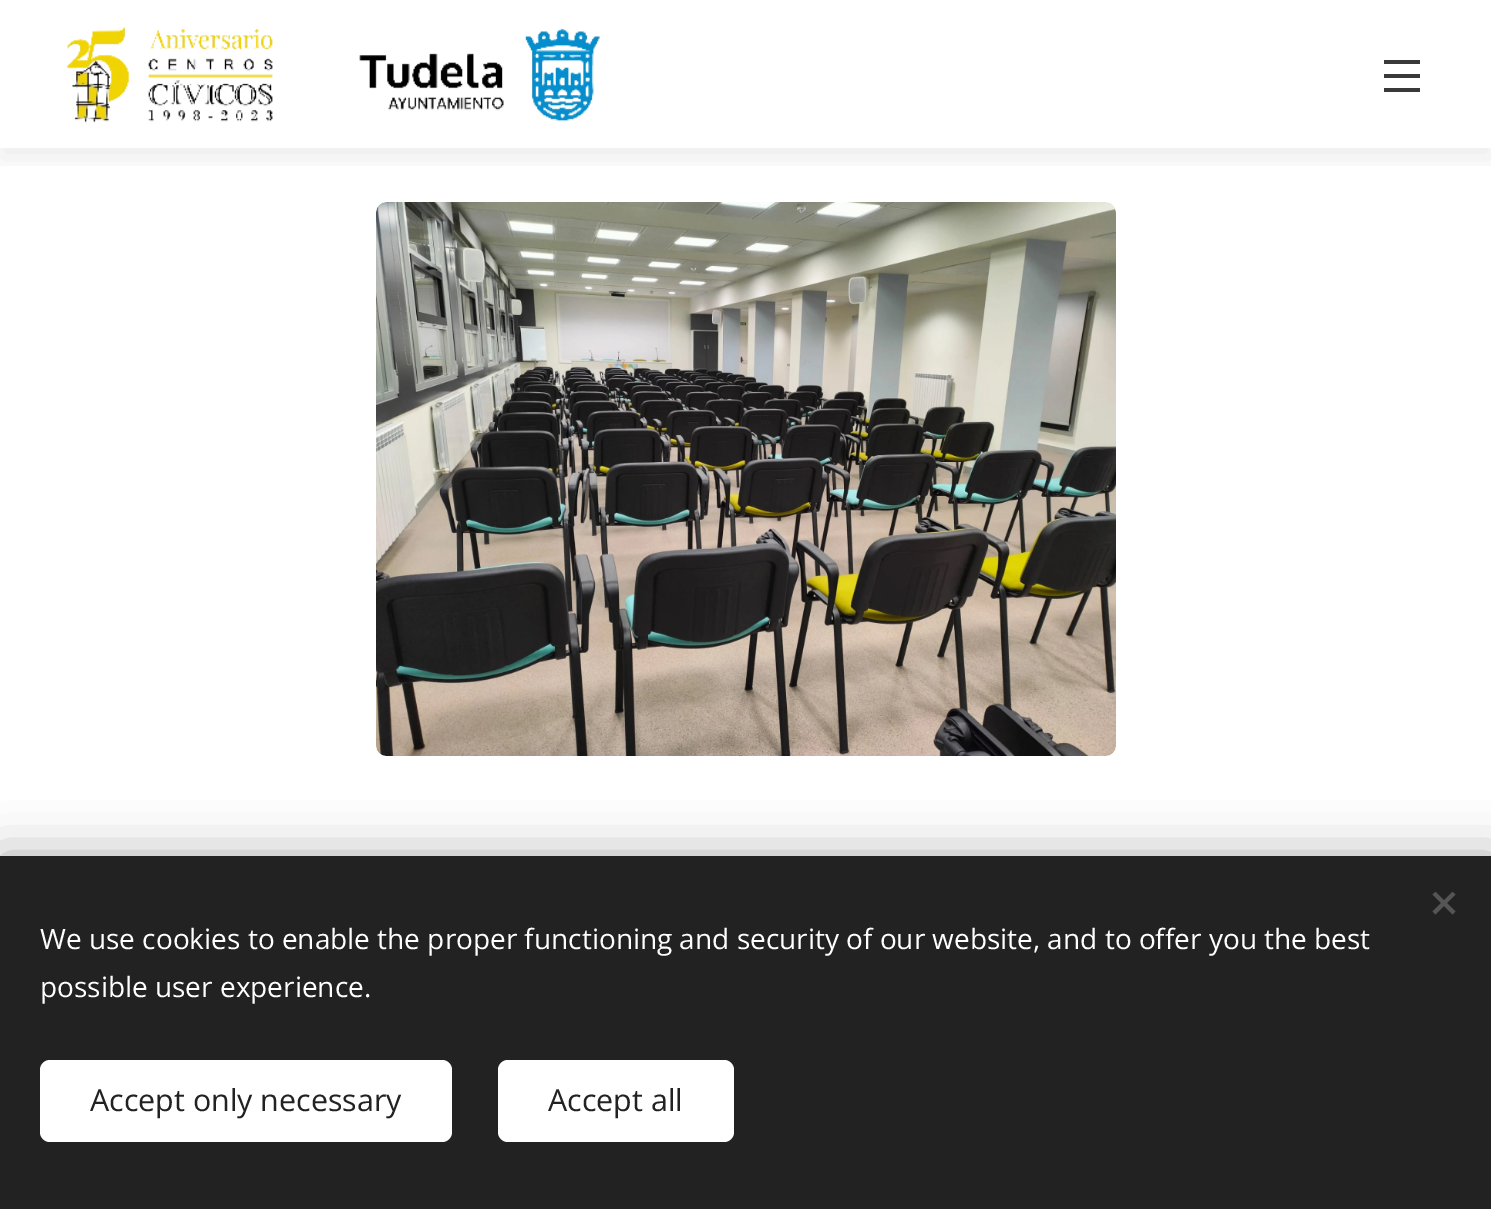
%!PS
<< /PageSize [1491 1209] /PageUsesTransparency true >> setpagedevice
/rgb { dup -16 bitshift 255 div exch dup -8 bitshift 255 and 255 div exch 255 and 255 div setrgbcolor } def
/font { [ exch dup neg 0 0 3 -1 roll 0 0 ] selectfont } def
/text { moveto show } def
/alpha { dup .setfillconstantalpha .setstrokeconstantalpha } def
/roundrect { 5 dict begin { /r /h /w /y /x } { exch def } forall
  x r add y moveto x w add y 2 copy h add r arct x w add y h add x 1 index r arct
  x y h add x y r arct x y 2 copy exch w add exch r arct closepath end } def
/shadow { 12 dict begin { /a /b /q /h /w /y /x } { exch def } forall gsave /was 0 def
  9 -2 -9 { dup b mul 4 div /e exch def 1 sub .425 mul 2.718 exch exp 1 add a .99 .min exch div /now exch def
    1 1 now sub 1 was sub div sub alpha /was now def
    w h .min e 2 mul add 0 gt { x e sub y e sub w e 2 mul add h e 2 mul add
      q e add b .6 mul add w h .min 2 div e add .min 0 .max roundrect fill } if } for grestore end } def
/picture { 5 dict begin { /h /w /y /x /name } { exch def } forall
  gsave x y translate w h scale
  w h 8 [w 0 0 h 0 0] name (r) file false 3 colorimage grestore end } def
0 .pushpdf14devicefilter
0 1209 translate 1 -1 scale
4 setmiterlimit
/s1 { /OpenSans-Regular 28 font 16#FFFFFF rgb } def
/s2 { /OpenSans-Regular 30.4 font 16#222222 rgb } def
16#FFFFFF rgb
0 0 1491 1209 rectfill
(pic2.raw) 376 202 740 554 picture
gsave
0 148 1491 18 rectclip
16#000000 rgb
0 10 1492 148 0 15 0.07 shadow
grestore
(pic1.raw) 67 27 533 96 picture
16#393939 rgb
1384 74 36 4 rectfill
1384 60 36 4 rectfill
1384 88 36 4 rectfill
16#000000 rgb
0 856 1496 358 0 25 0.33 shadow
16#222222 rgb
0 856 1491 353 rectfill
16#555555 rgb
1432.5 911.5 moveto 1452.5 892 lineto 1455.5 894.5 lineto 1435.5 914.5 lineto closepath fill
1435.5 892 moveto 1455.5 911.5 lineto 1452.5 914.5 lineto 1432.5 894.5 lineto closepath fill
s1
(We use cookies to enable the proper functioning and security of our website, and to offer you the best) 40 949 text
(possible user experience.) 40 997 text
40 1060 412 82 10 roundrect fill
s2
(Accept only necessary) 90 1111 text
16#FFFFFF rgb
498 1060 236 82 10 roundrect fill
s2
(Accept all) 548 1111 text
.poppdf14devicefilter showpage
